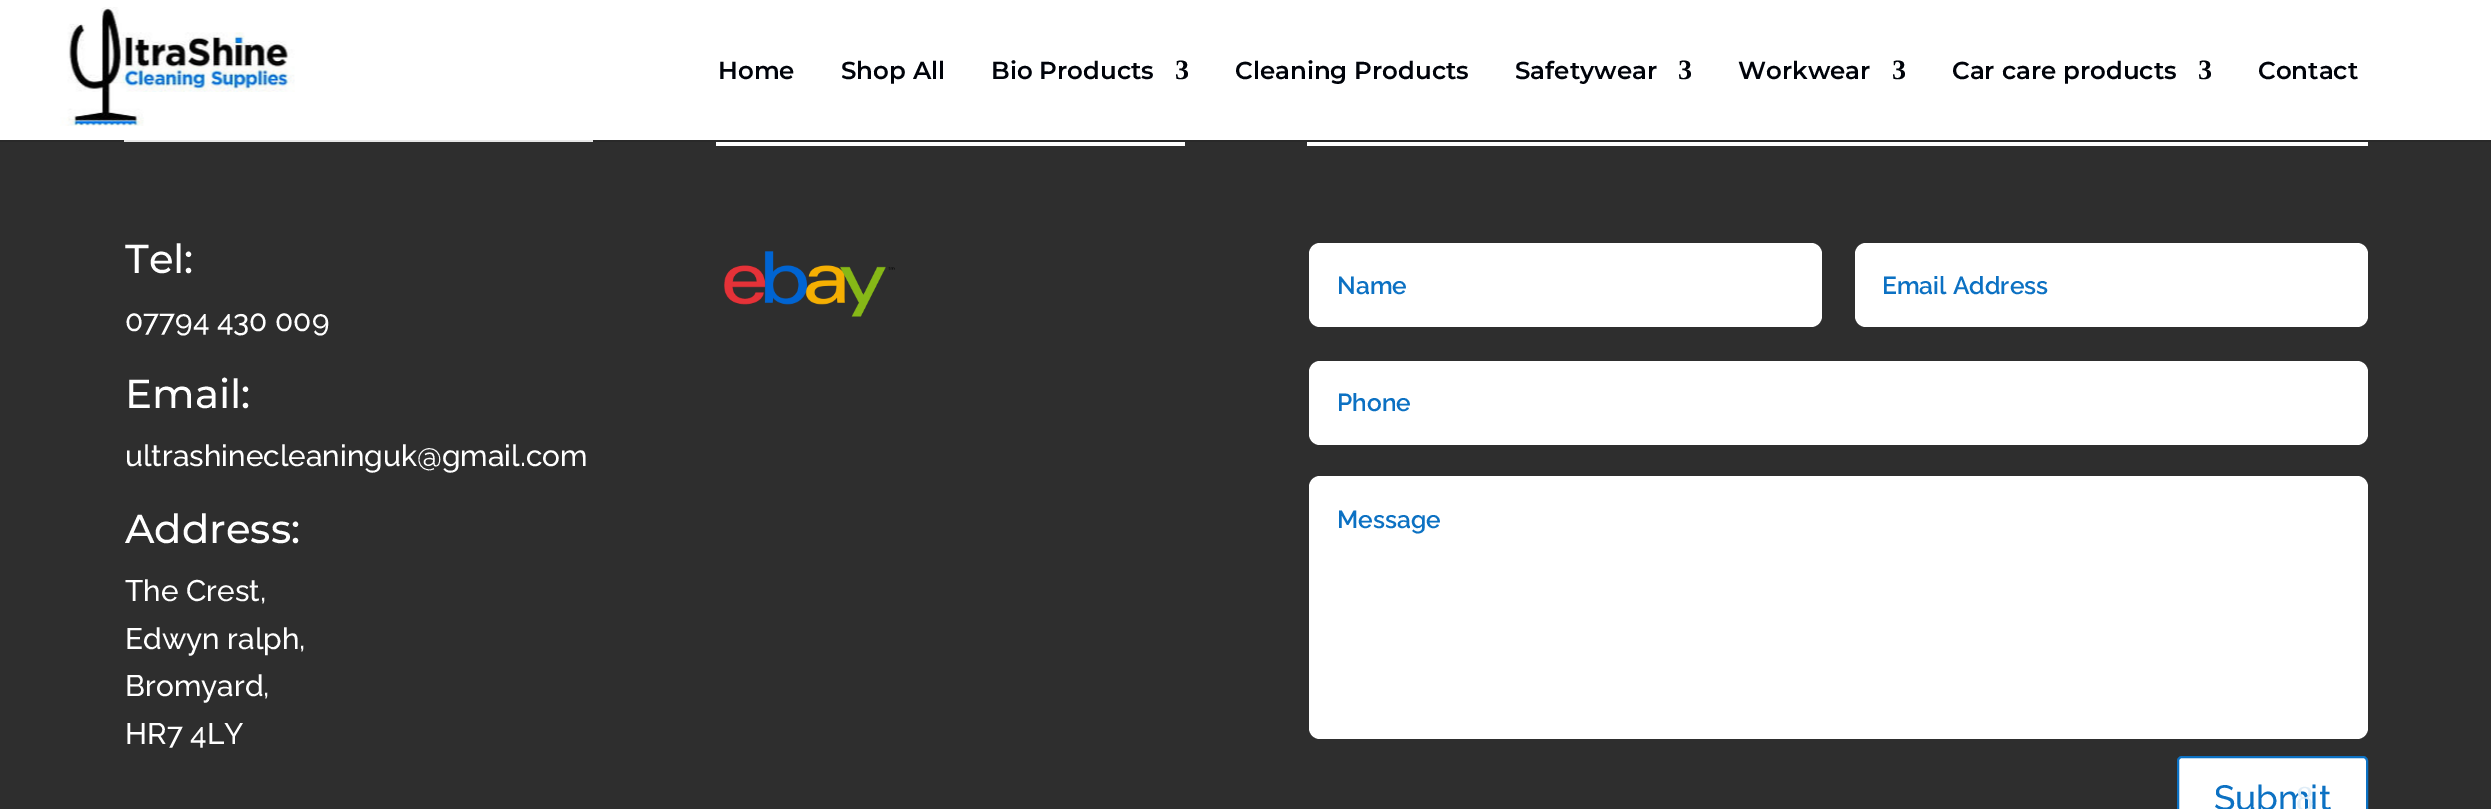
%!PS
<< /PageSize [2491 809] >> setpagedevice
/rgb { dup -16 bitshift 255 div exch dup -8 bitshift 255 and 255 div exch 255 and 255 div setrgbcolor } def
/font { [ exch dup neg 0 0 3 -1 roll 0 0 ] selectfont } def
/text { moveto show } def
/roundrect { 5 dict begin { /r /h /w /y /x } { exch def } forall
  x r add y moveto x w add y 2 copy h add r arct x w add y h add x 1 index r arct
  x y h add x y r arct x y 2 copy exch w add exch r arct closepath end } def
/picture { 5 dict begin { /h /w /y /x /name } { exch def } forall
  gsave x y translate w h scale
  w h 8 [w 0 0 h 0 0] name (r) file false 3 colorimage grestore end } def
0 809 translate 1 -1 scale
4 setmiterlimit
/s1 { /Montserrat-SemiBold 24.5 font 16#00030A rgb } def
/s2 { /LiberationSerif-Bold 28 font 16#00030A rgb } def
/s3 { /Montserrat-Medium 40.25 font 16#FFFFFF rgb } def
/s4 { /Raleway-Medium 29.75 font 16#FFFFFF rgb } def
/s5 { /Raleway-SemiBold 24.5 font 16#0C71C3 rgb } def
/s6 { /Raleway-Medium 35 font 16#0C71C3 rgb } def
/s7 { /LiberationSerif-Regular 35 font 16#E0EDF7 rgb } def
16#2E2E2E rgb
0 0 2491 809 rectfill
16#FFFFFF rgb
0 0 2491 140 rectfill
(pic1.raw) 60 7 235 119 picture
s1
(Home) 718 79 text
(Shop All) 841 79 text
(Bio Products) 991 79 text
s2
(3) 1175 79 text
s1
(Cleaning Products) 1235 79 text
(Safetywear) 1515 79 text
s2
(3) 1678 79 text
s1
(Workwear) 1738 79 text
s2
(3) 1892 79 text
s1
(Car care products) 1952 79 text
s2
(3) 2198 79 text
s1
(Contact) 2258 79 text
16#292929 rgb
0 140 2491 2 rectfill
16#E6E6E6 rgb
124 140 469 2 rectfill
s3
(Tel:) 125 273 text
s4
(07794 430 009) 125 331 text
s3
(Email:) 125 408 text
s4
(ultrashinecleaninguk@gmail.com) 125 466 text
s3
(Address:) 125 543 text
s4
(The Crest,) 125 601 text
(Edwyn ralph,) 125 649 text
(Bromyard,) 125 696 text
(HR7 4LY) 125 744 text
716 142 469 4 rectfill
(pic2.raw) 724 251 171 66 picture
1307 142 1061 4 rectfill
1309 243 513 84 11 roundrect fill
s5
(Name) 1337 294 text
16#FFFFFF rgb
1855 243 513 84 11 roundrect fill
s5
(Email Address) 1882 294 text
16#FFFFFF rgb
1309 361 1059 84 11 roundrect fill
s5
(Phone) 1337 411 text
16#FFFFFF rgb
1309 476 1059 263 11 roundrect fill
s5
(Message) 1337 528 text
16#FFFFFF rgb
2178 757 189 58 4 roundrect gsave fill grestore
16#0C71C3 rgb
2 setlinewidth
stroke
s6
(Submit) 2214 810 text
s7
(8) 2296 810 text
showpage
